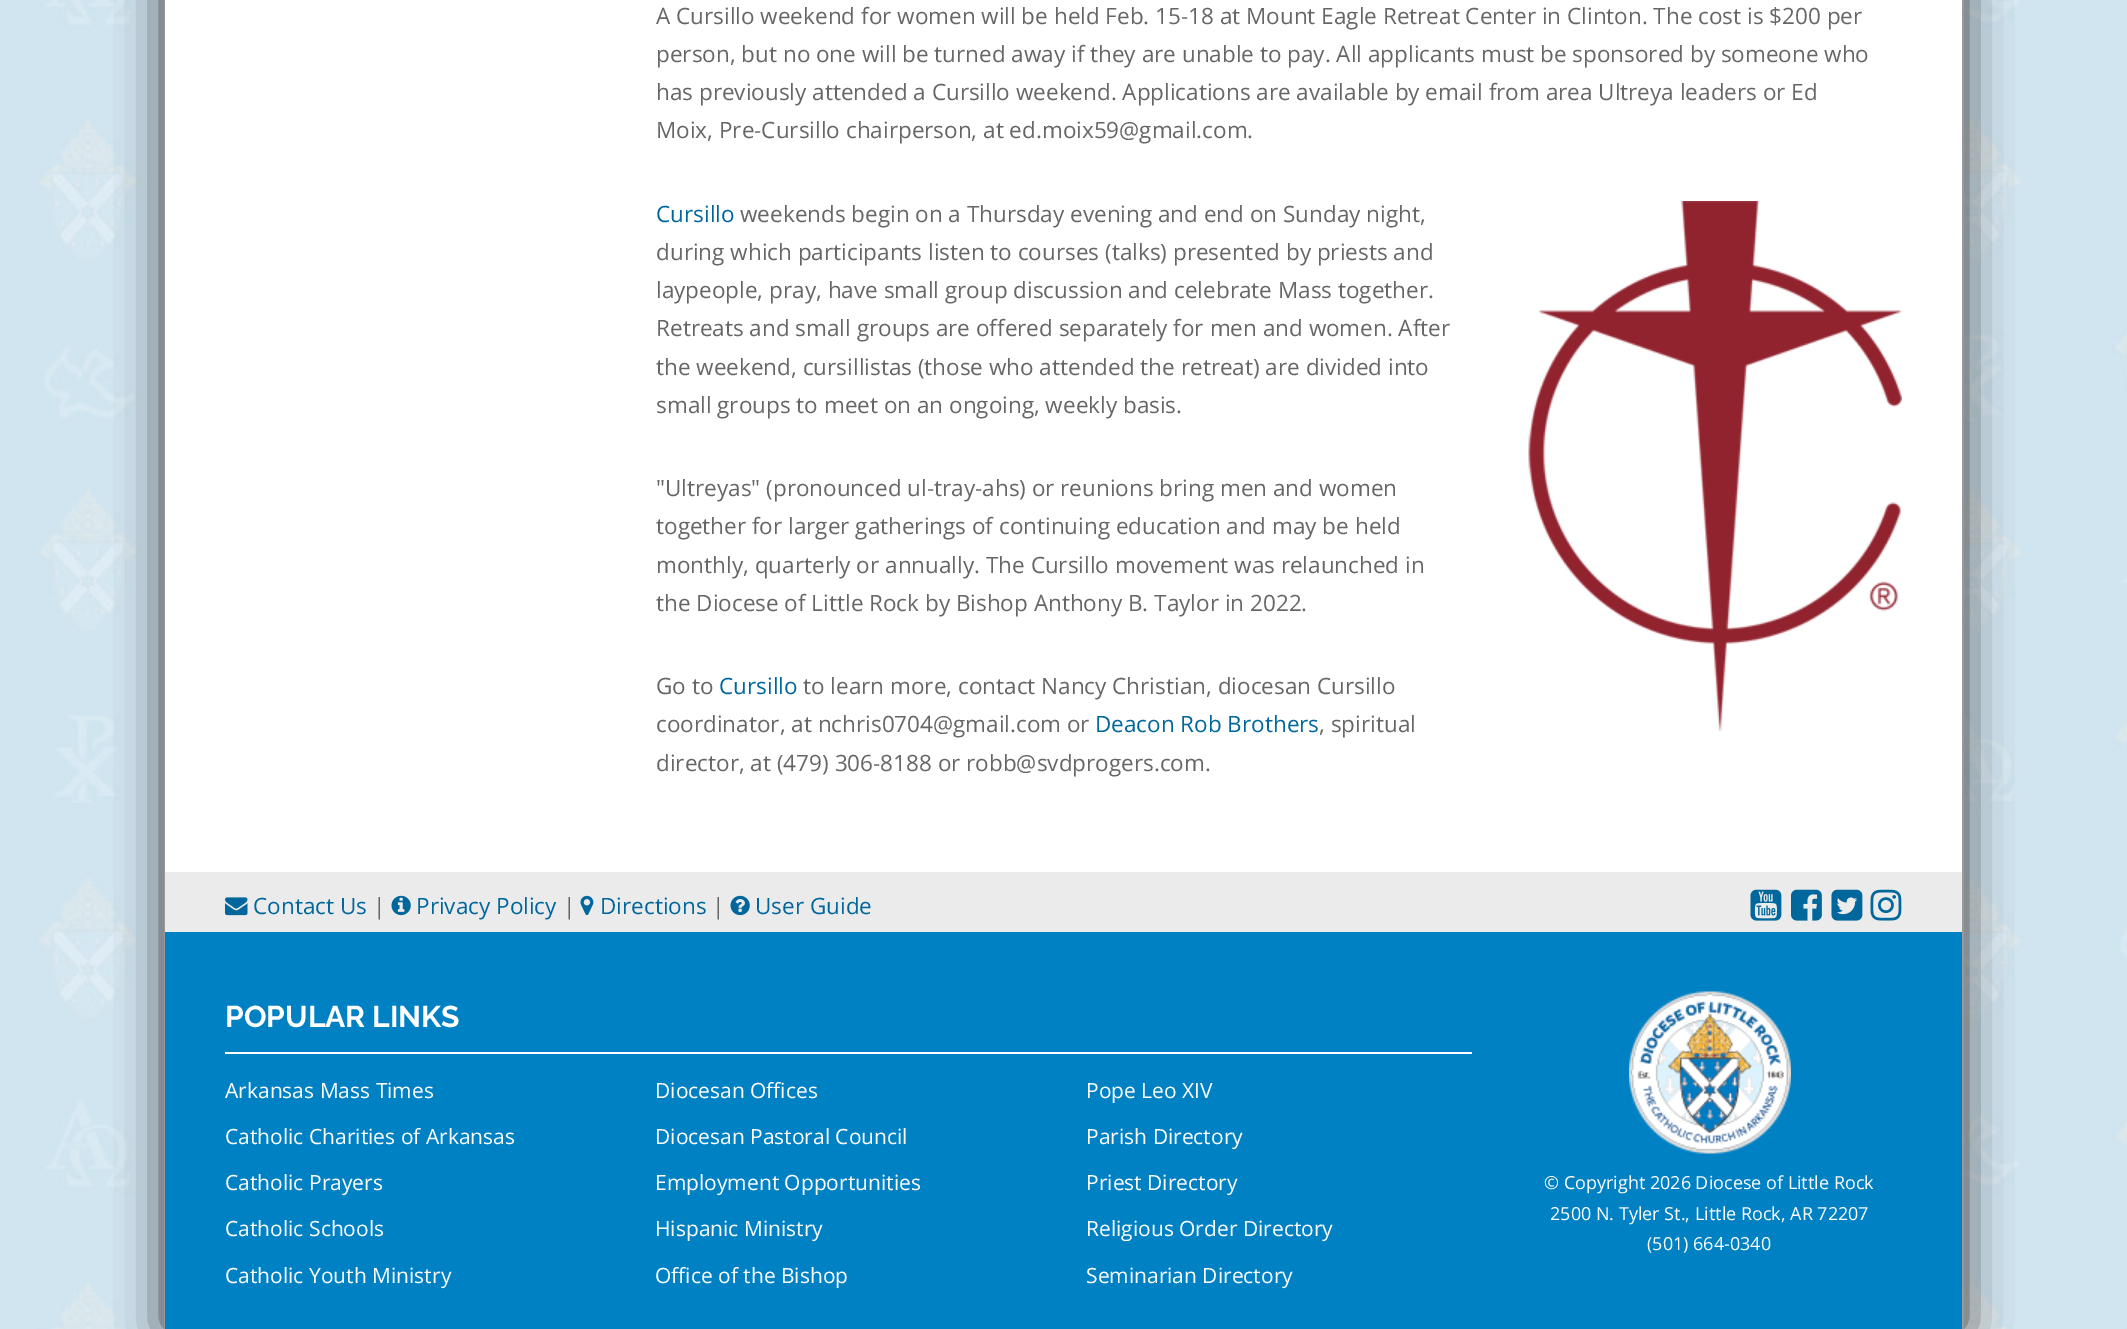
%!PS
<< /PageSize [2127 1329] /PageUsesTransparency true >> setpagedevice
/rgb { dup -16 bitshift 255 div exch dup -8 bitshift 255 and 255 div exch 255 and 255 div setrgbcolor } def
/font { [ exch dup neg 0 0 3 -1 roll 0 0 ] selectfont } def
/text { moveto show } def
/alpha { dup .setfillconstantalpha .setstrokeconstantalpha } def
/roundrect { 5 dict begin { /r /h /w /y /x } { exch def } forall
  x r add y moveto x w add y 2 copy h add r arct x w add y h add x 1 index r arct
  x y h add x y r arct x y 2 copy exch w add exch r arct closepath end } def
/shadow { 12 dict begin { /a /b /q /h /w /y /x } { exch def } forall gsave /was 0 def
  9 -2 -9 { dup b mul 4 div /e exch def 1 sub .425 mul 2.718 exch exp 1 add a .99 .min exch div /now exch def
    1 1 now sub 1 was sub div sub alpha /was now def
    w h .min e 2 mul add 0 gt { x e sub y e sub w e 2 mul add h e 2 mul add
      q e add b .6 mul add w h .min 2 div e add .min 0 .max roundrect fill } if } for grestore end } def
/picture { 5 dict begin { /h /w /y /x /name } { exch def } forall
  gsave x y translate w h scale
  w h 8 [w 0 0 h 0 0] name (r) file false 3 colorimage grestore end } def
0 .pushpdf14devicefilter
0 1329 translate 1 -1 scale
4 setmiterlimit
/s1 { /OpenSans-Regular 22.5 font 16#666666 rgb } def
/s2 { /OpenSans-Regular 22.5 font 16#00679C rgb } def
/s3 { /Raleway-Bold 30 font 16#FFFFFF rgb } def
/s4 { /OpenSans-Regular 21 font 16#FFFFFF rgb } def
/s5 { /OpenSans-Regular 18 font 16#FFFFFF rgb } def
16#FFFFFF rgb
0 0 2127 1329 rectfill
(pic1.raw) 0 0 2127 1329 picture
16#333333 rgb
164 -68 1800 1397 0 22.5 1 shadow
16#999999 rgb
1962 0 2 1329 rectfill
164 0 1 1329 rectfill
16#FFFFFF rgb
165 0 1797 872 rectfill
s1
(A Cursillo weekend for women will be held Feb. 15-18 at Mount Eagle Retreat Center in Clinton. The cost is $200 per) 656 24 text
(person, but no one will be turned away if they are unable to pay. All applicants must be sponsored by someone who) 656 62 text
(has previously attended a Cursillo weekend. Applications are available by email from area Ultreya leaders or Ed) 656 100 text
(Moix, Pre-Cursillo chairperson, at ed.moix59@gmail.com.) 656 138 text
s2
(Cursillo) 656 222 text
(pic2.raw) 1528 201 374 531 picture
s1
(weekends begin on a Thursday evening and end on Sunday night,) 740 222 text
(during which participants listen to courses \(talks\) presented by priests and) 656 260 text
(laypeople, pray, have small group discussion and celebrate Mass together.) 656 298 text
(Retreats and small groups are offered separately for men and women. After) 656 336 text
(the weekend, cursillistas \(those who attended the retreat\) are divided into) 656 375 text
(small groups to meet on an ongoing, weekly basis.) 656 413 text
("Ultreyas" \(pronounced ul-tray-ahs\) or reunions bring men and women) 656 496 text
(together for larger gatherings of continuing education and may be held) 656 534 text
(monthly, quarterly or annually. The Cursillo movement was relaunched in) 656 573 text
(the Diocese of Little Rock by Bishop Anthony B. Taylor in 2022.) 656 611 text
(Go to) 656 694 text
s2
(Cursillo) 719 694 text
s1
(to learn more, contact Nancy Christian, diocesan Cursillo) 803 694 text
(coordinator, at nchris0704@gmail.com or) 656 732 text
s2
(Deacon Rob Brothers) 1095 732 text
s1
(, spiritual) 1319 732 text
(director, at \(479\) 306-8188 or robb@svdprogers.com.) 656 771 text
16#EBEBEB rgb
165 872 1797 60 rectfill
(pic3.raw) 225 897 23 19 picture
s2
(Contact Us) 253 914 text
s1
(|) 373 914 text
(pic4.raw) 391 895 20 21 picture
s2
(Privacy Policy) 416 914 text
s1
(|) 563 914 text
(pic5.raw) 580 895 14 21 picture
s2
(Directions) 600 914 text
s1
(|) 712 914 text
(pic6.raw) 730 895 20 21 picture
s2
(User Guide) 755 914 text
(pic7.raw) 1750 889 32 32 picture
(pic8.raw) 1791 889 31 32 picture
(pic9.raw) 1831 889 32 32 picture
(pic10.raw) 1870 889 32 32 picture
16#0081C4 rgb
165 932 1797 397 rectfill
16#FFFFFF rgb
225 1052 1247 2 rectfill
s3
(POPULAR LINKS) 225 1027 text
s4
(Arkansas Mass Times) 225 1098 text
(Catholic Charities of Arkansas) 225 1144 text
(Catholic Prayers) 225 1190 text
(Catholic Schools) 225 1236 text
(Catholic Youth Ministry) 225 1283 text
(Diocesan Offices) 655 1098 text
(Diocesan Pastoral Council) 655 1144 text
(Employment Opportunities) 655 1190 text
(Hispanic Ministry) 655 1236 text
(Office of the Bishop) 655 1283 text
(Pope Leo XIV) 1086 1098 text
(Parish Directory) 1086 1144 text
(Priest Directory) 1086 1190 text
(Religious Order Directory) 1086 1236 text
(Seminarian Directory) 1086 1283 text
(pic11.raw) 1629 991 162 163 picture
s5
(© Copyright 2026 Diocese of Little Rock) 1544 1189 text
(2500 N. Tyler St., Little Rock, AR 72207) 1550 1220 text
(\(501\) 664-0340) 1647 1250 text
.poppdf14devicefilter showpage
